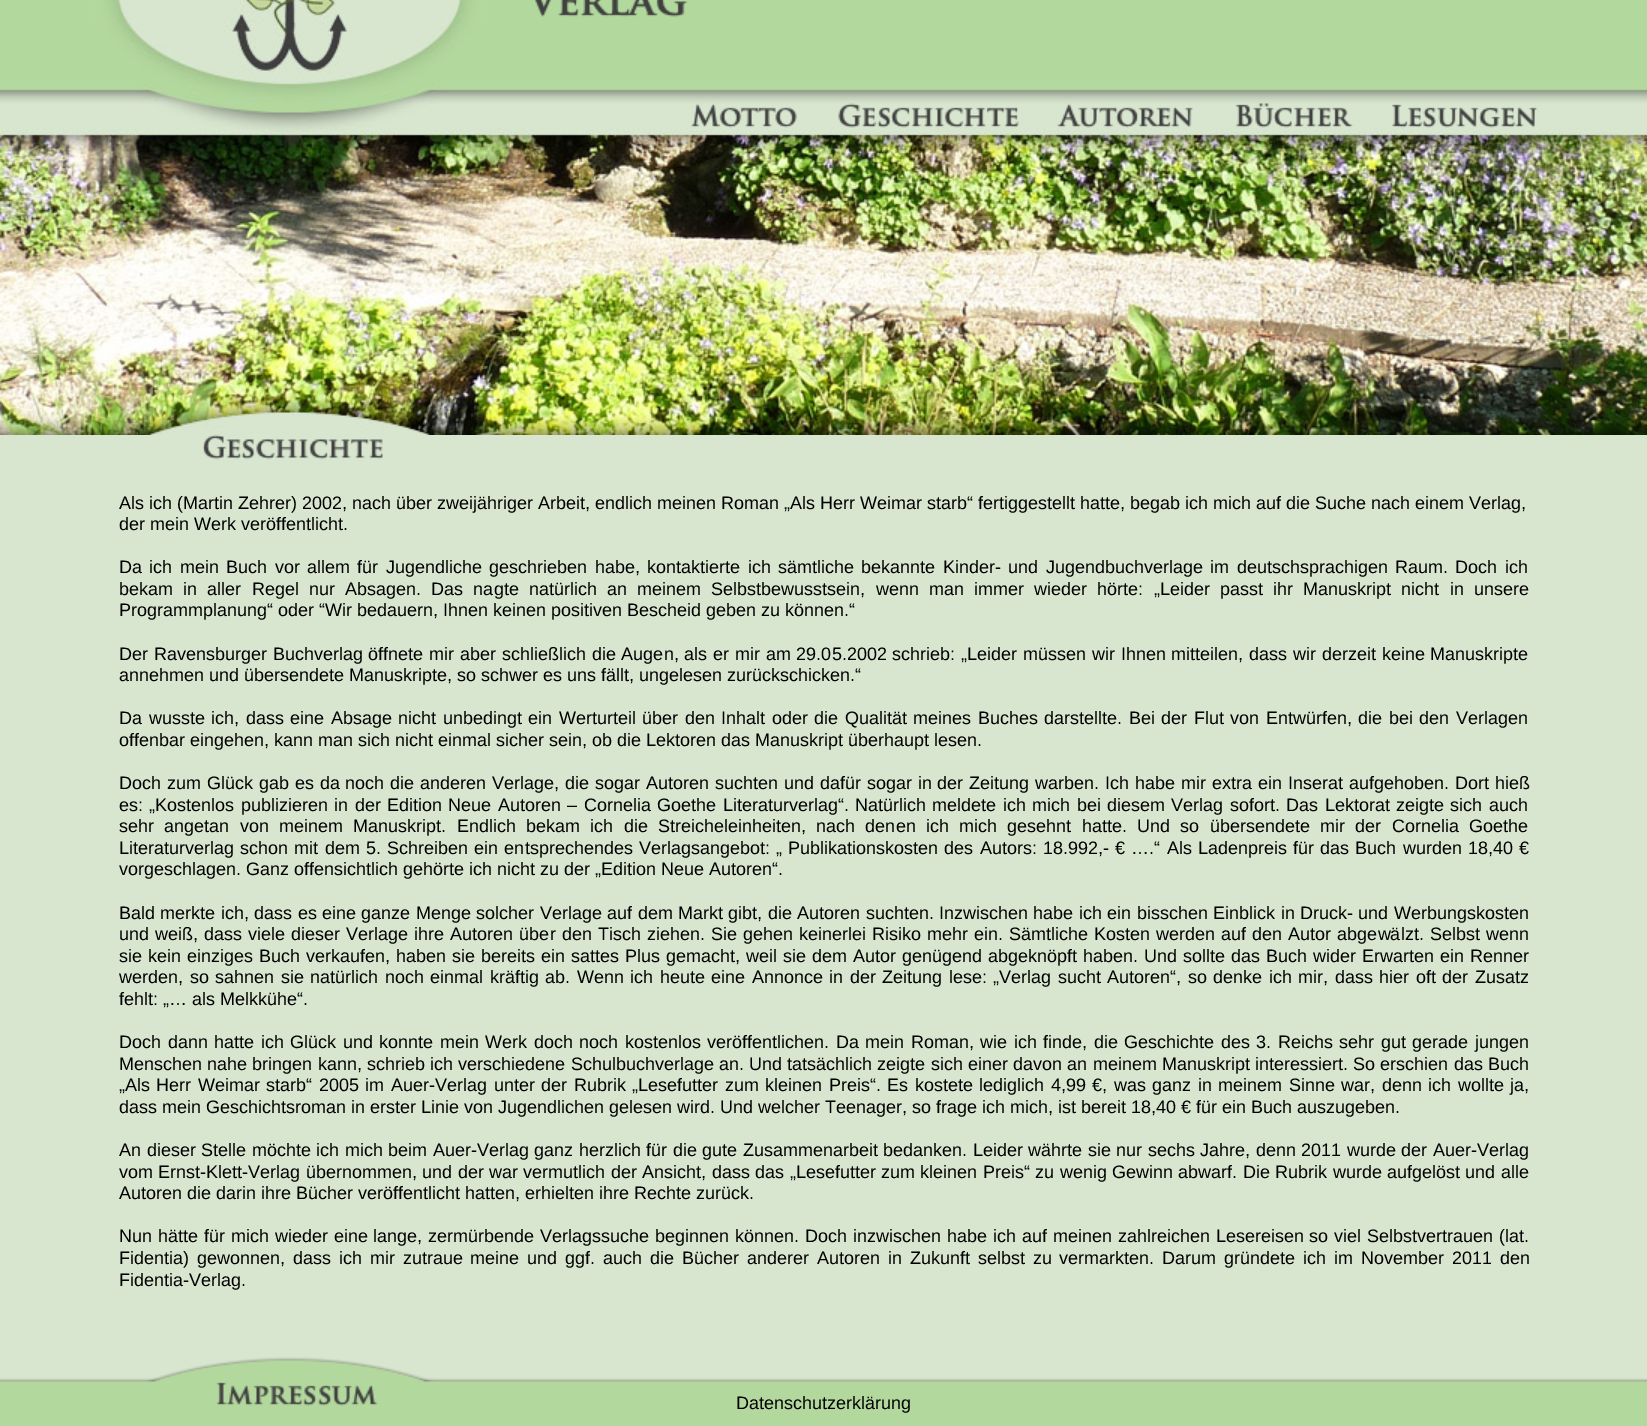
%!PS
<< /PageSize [1647 1426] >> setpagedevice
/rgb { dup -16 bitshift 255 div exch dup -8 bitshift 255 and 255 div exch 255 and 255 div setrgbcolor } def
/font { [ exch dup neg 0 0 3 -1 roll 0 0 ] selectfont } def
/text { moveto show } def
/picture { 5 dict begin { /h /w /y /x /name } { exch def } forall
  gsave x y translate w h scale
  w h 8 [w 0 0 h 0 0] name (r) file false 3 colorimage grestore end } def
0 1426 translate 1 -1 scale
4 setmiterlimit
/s1 { /LiberationSans-Regular 18 font 16#000000 rgb } def
16#D8E6CF rgb
0 0 1647 1426 rectfill
(pic1.raw) 0 0 1647 435 picture
(pic2.raw) 534 0 154 17 picture
(pic3.raw) 691 103 847 25 picture
(pic4.raw) 202 434 181 26 picture
s1
(Als ich \(Martin Zehrer\) 2002, nach über zweijähriger Arbeit, endlich meinen Roman „Als Herr Weimar starb“ fertiggestellt hatte, begab ich mich auf die Suche nach einem Verlag,) 119 509 text
(der mein Werk veröffentlicht.) 119 530 text
119 573 moveto 2.4 0 32 (Da ich mein Buch vor allem für Jugendliche geschrieben habe, kontaktierte ich sämtliche bekannte Kinder- und Jugendbuchverlage im deutschsprachigen Raum. Doch ich) widthshow
119 595 moveto 5.2 0 32 (bekam in aller Regel nur Absagen. Das nagte natürlich an meinem Selbstbewusstsein, wenn man immer wieder hörte: „Leider passt ihr Manuskript nicht in unsere) widthshow
(Programmplanung“ oder “Wir bedauern, Ihnen keinen positiven Bescheid geben zu können.“) 119 616 text
119 660 moveto 0.8 0 32 (Der Ravensburger Buchverlag öffnete mir aber schließlich die Augen, als er mir am 29.05.2002 schrieb: „Leider müssen wir Ihnen mitteilen, dass wir derzeit keine Manuskripte) widthshow
(annehmen und übersendete Manuskripte, so schwer es uns fällt, ungelesen zurückschicken.“) 119 681 text
119 724 moveto 1.5 0 32 (Da wusste ich, dass eine Absage nicht unbedingt ein Werturteil über den Inhalt oder die Qualität meines Buches darstellte. Bei der Flut von Entwürfen, die bei den Verlagen) widthshow
(offenbar eingehen, kann man sich nicht einmal sicher sein, ob die Lektoren das Manuskript überhaupt lesen.) 119 746 text
119 789 moveto 0.9 0 32 (Doch zum Glück gab es da noch die anderen Verlage, die sogar Autoren suchten und dafür sogar in der Zeitung warben. Ich habe mir extra ein Inserat aufgehoben. Dort hieß) widthshow
119 811 moveto 1.4 0 32 (es: „Kostenlos publizieren in der Edition Neue Autoren – Cornelia Goethe Literaturverlag“. Natürlich meldete ich mich bei diesem Verlag sofort. Das Lektorat zeigte sich auch) widthshow
119 832 moveto 5.3 0 32 (sehr angetan von meinem Manuskript. Endlich bekam ich die Streicheleinheiten, nach denen ich mich gesehnt hatte. Und so übersendete mir der Cornelia Goethe) widthshow
119 854 moveto 1.2 0 32 (Literaturverlag schon mit dem 5. Schreiben ein entsprechendes Verlagsangebot: „ Publikationskosten des Autors: 18.992,- € ….“ Als Ladenpreis für das Buch wurden 18,40 €) widthshow
(vorgeschlagen. Ganz offensichtlich gehörte ich nicht zu der „Edition Neue Autoren“.) 119 875 text
119 919 moveto 0.4 0 32 (Bald merkte ich, dass es eine ganze Menge solcher Verlage auf dem Markt gibt, die Autoren suchten. Inzwischen habe ich ein bisschen Einblick in Druck- und Werbungskosten) widthshow
119 940 moveto 1.05 0 32 (und weiß, dass viele dieser Verlage ihre Autoren über den Tisch ziehen. Sie gehen keinerlei Risiko mehr ein. Sämtliche Kosten werden auf den Autor abgewälzt. Selbst wenn) widthshow
119 962 moveto 1 0 32 (sie kein einziges Buch verkaufen, haben sie bereits ein sattes Plus gemacht, weil sie dem Autor genügend abgeknöpft haben. Und sollte das Buch wider Erwarten ein Renner) widthshow
119 983 moveto 1.5 0 32 (werden, so sahnen sie natürlich noch einmal kräftig ab. Wenn ich heute eine Annonce in der Zeitung lese: „Verlag sucht Autoren“, so denke ich mir, dass hier oft der Zusatz) widthshow
(fehlt: „… als Melkkühe“.) 119 1005 text
119 1048 moveto 1.5 0 32 (Doch dann hatte ich Glück und konnte mein Werk doch noch kostenlos veröffentlichen. Da mein Roman, wie ich finde, die Geschichte des 3. Reichs sehr gut gerade jungen) widthshow
119 1070 moveto 0.2 0 32 (Menschen nahe bringen kann, schrieb ich verschiedene Schulbuchverlage an. Und tatsächlich zeigte sich einer davon an meinem Manuskript interessiert. So erschien das Buch) widthshow
119 1091 moveto 1.5 0 32 („Als Herr Weimar starb“ 2005 im Auer-Verlag unter der Rubrik „Lesefutter zum kleinen Preis“. Es kostete lediglich 4,99 €, was ganz in meinem Sinne war, denn ich wollte ja,) widthshow
(dass mein Geschichtsroman in erster Linie von Jugendlichen gelesen wird. Und welcher Teenager, so frage ich mich, ist bereit 18,40 € für ein Buch auszugeben.) 119 1113 text
119 1156 moveto 0.5 0 32 (An dieser Stelle möchte ich mich beim Auer-Verlag ganz herzlich für die gute Zusammenarbeit bedanken. Leider währte sie nur sechs Jahre, denn 2011 wurde der Auer-Verlag) widthshow
119 1178 moveto 0.4 0 32 (vom Ernst-Klett-Verlag übernommen, und der war vermutlich der Ansicht, dass das „Lesefutter zum kleinen Preis“ zu wenig Gewinn abwarf. Die Rubrik wurde aufgelöst und alle) widthshow
(Autoren die darin ihre Bücher veröffentlicht hatten, erhielten ihre Rechte zurück.) 119 1199 text
119 1242 moveto 0.9 0 32 (Nun hätte für mich wieder eine lange, zermürbende Verlagssuche beginnen können. Doch inzwischen habe ich auf meinen zahlreichen Lesereisen so viel Selbstvertrauen \(lat.) widthshow
119 1264 moveto 2.9 0 32 (Fidentia\) gewonnen, dass ich mir zutraue meine und ggf. auch die Bücher anderer Autoren in Zukunft selbst zu vermarkten. Darum gründete ich im November 2011 den) widthshow
(Fidentia-Verlag.) 119 1286 text
(pic5.raw) 0 1357 1647 69 picture
(pic6.raw) 216 1382 162 24 picture
(Datenschutzerklärung) 736 1409 text
showpage
